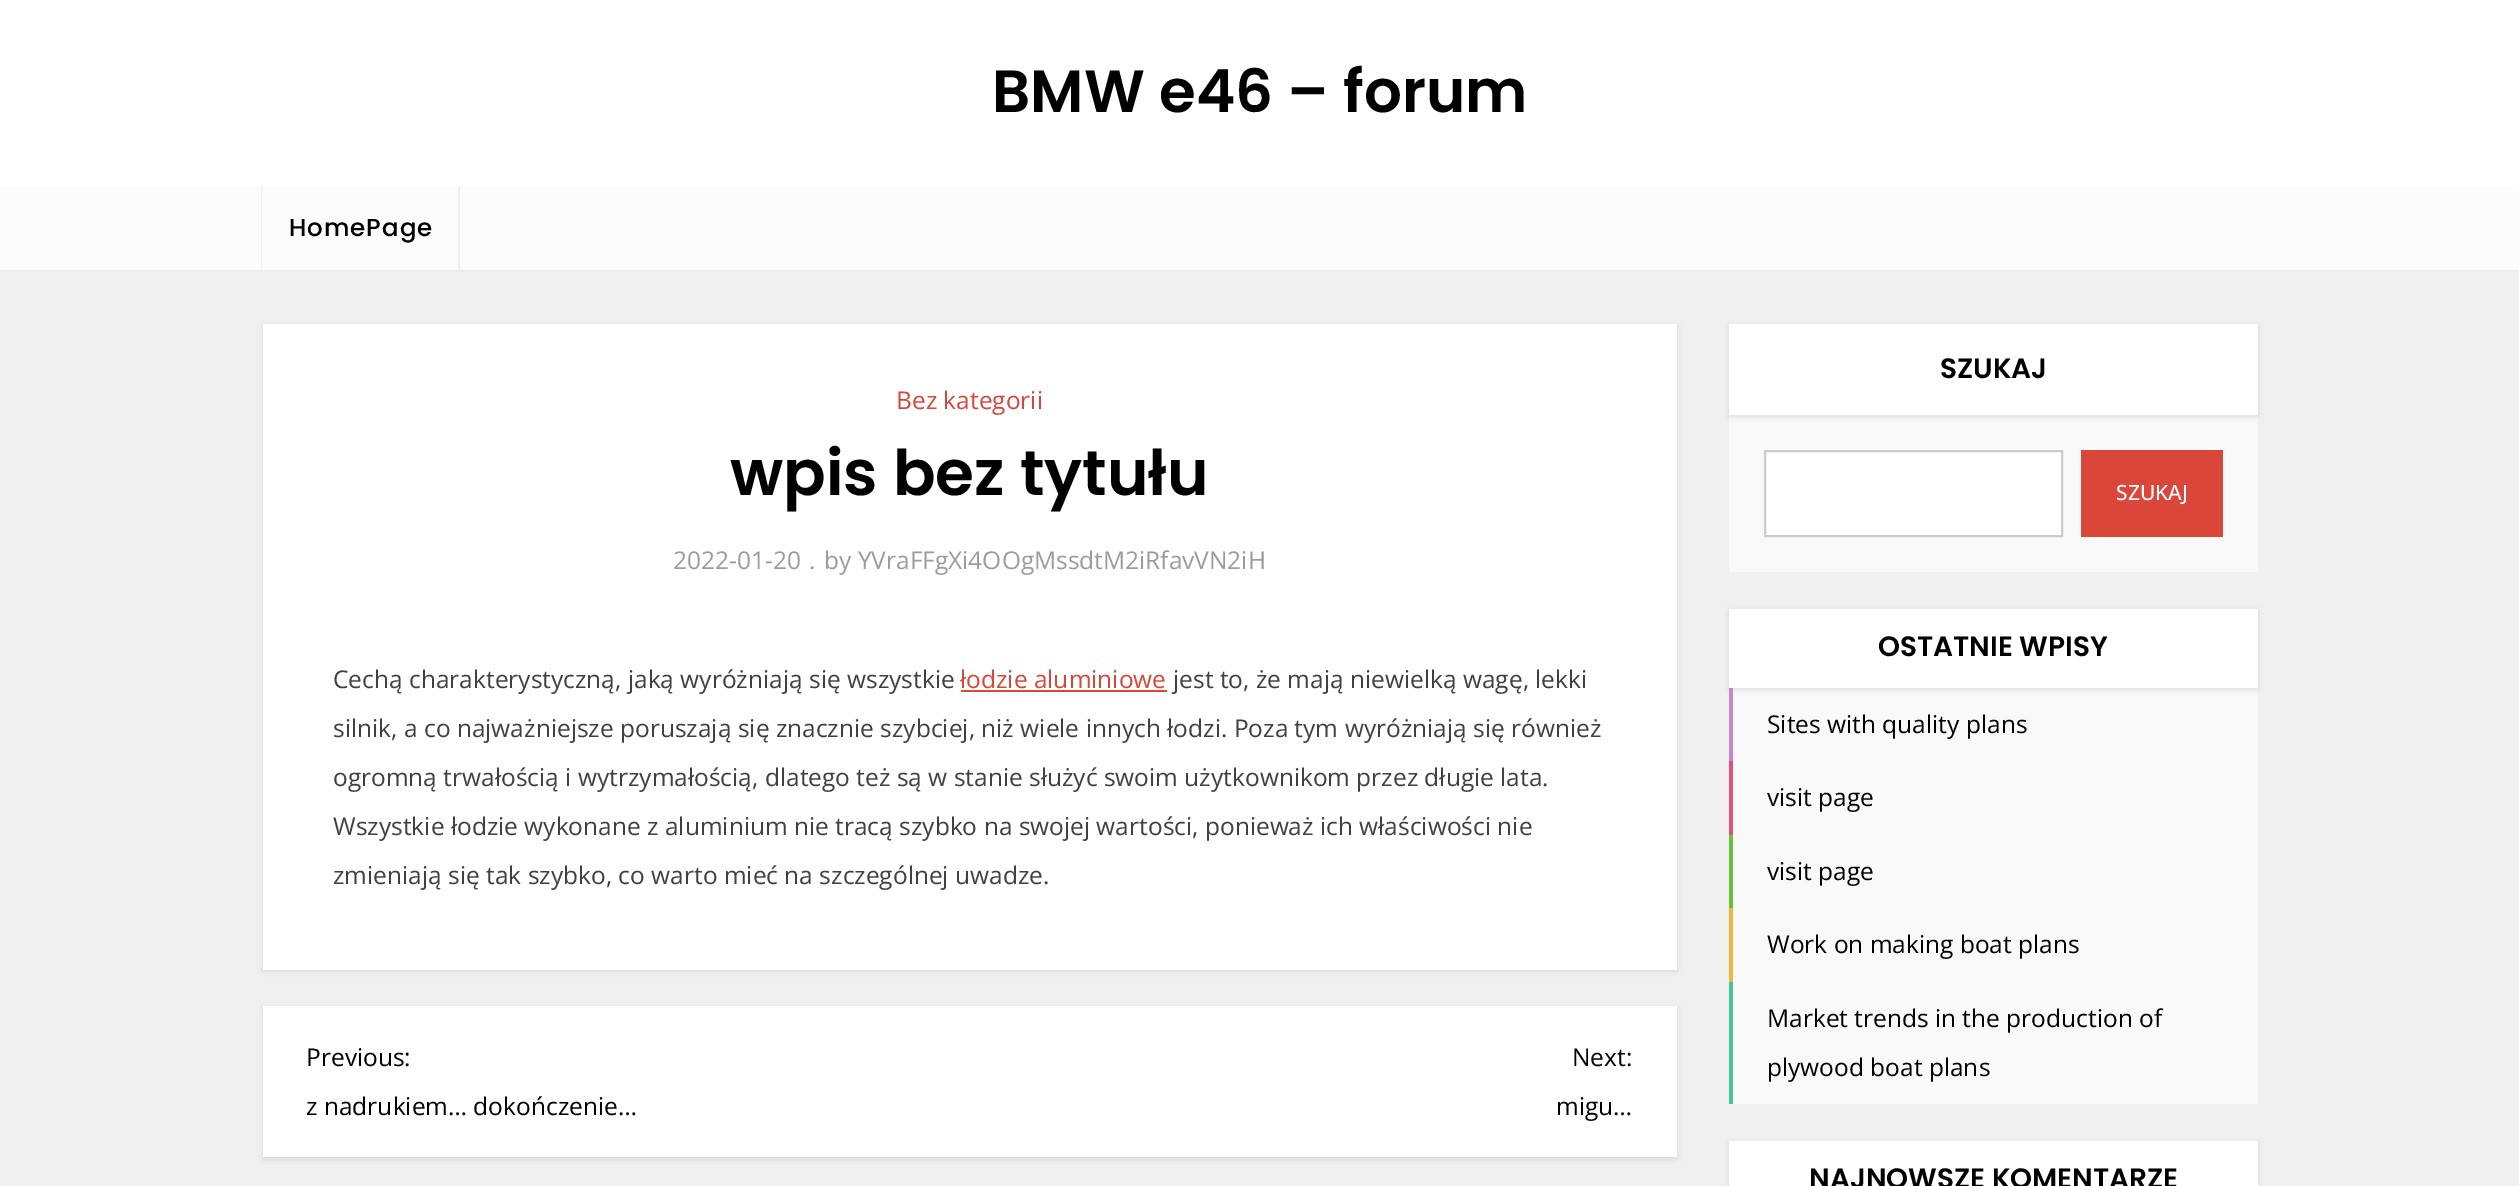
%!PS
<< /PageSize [2519 1186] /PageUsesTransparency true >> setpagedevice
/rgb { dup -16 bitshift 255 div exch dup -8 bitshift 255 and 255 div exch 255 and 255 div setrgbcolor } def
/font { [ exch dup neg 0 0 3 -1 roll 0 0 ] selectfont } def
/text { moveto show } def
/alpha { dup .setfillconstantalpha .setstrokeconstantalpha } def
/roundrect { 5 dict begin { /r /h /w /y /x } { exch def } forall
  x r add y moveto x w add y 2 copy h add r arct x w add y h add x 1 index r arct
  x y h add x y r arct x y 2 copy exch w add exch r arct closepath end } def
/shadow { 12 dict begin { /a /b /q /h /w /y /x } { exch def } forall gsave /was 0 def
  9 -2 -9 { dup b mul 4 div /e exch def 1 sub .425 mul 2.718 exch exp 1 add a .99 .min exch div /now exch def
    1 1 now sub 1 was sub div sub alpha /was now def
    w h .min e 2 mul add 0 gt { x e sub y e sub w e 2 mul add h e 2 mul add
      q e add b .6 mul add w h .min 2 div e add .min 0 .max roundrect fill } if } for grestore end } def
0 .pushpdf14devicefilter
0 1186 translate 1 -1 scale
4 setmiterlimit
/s1 { /Poppins-SemiBold 59.5 font 16#000000 rgb } def
/s2 { /OpenSans-Regular 24.5 font 16#DA463A rgb } def
/s3 { /Poppins-SemiBold 63 font 16#000000 rgb } def
/s4 { /OpenSans-Regular 24.5 font 16#9B9B9B rgb } def
/s5 { /OpenSans-Regular 24.5 font 16#404040 rgb } def
/s6 { /OpenSans-Regular 24.5 font 16#000000 rgb } def
/s7 { /Poppins-SemiBold 28 font 16#000000 rgb } def
/s8 { /OpenSans-Medium 21 font 16#FFFFFF rgb } def
16#F0F0F0 rgb
0 0 2519 1186 rectfill
16#ECECEC rgb
0 270 2519 2 rectfill
16#FFFFFF rgb
0 0 2519 186 rectfill
s1
(BMW e46 – forum) 992 112 text
16#FCFCFC rgb
0 186 2519 84 rectfill
16#EFEFEF rgb
264 270 moveto 460 270 lineto 460 186 lineto 458 186 lineto 458 270 lineto closepath fill
261 186 moveto 261 270 lineto 457 270 lineto 262 270 lineto 262 186 lineto closepath fill
/Poppins-Medium 24.5 font
16#000000 rgb
289 236 moveto 1 0 (HomePage) ashow
263 326 1414 645 0 2.5 0.1 shadow
16#FFFFFF rgb
263 324 1414 646 rectfill
s2
(Bez kategorii) 896 409 text
s3
(wpis bez tytułu) 730 495 text
s4
(2022-01-20) 673 569 text
(.) 809 569 text
(by YVraFFgXi4OOgMssdtM2iRfavVN2iH) 824 569 text
s5
(Cechą charakterystyczną, jaką wyróżniają się wszystkie) 333 688 text
s2
(łodzie aluminiowe) 960 688 text
961 690 206 2 rectfill
s5
(jest to, że mają niewielką wagę, lekki) 1173 688 text
(silnik, a co najważniejsze poruszają się znacznie szybciej, niż wiele innych łodzi. Poza tym wyróżniają się również) 333 737 text
(ogromną trwałością i wytrzymałością, dlatego też są w stanie służyć swoim użytkownikom przez długie lata.) 333 786 text
(Wszystkie łodzie wykonane z aluminium nie tracą szybko na swojej wartości, ponieważ ich właściwości nie) 333 835 text
(zmieniają się tak szybko, co warto mieć na szczególnej uwadze.) 333 884 text
16#000000 rgb
263 1008 1414 151 0 2.5 0.1 shadow
16#FFFFFF rgb
263 1006 1414 151 rectfill
s6
(Previous:) 306 1066 text
(z nadrukiem… dokończenie…) 306 1115 text
(Next:) 1572 1066 text
(migu…) 1556 1115 text
16#F9F9F9 rgb
1729 415 529 157 rectfill
16#000000 rgb
1729 326 529 91 0 2.5 0.1 shadow
16#FFFFFF rgb
1729 324 529 91 rectfill
s7
(SZUKAJ) 1940 378 text
16#FFFFFF rgb
1765 451 moveto 2062 451 lineto 2062 536 lineto 1765 536 lineto closepath gsave fill grestore
16#CCCCCC rgb
2 setlinewidth
stroke
16#DA463A rgb
2081 450 142 87 rectfill
s8
(SZUKAJ) 2116 500 text
16#F9F9F9 rgb
1733 688 525 416 rectfill
16#000000 rgb
1729 611 529 79 0 2.5 0.1 shadow
16#FFFFFF rgb
1729 609 529 79 rectfill
s7
(OSTATNIE WPISY) 1878 656 text
16#CA85CA rgb
1729 688 4 73 rectfill
s6
(Sites with quality plans) 1767 733 text
16#E54E7E rgb
1729 761 4 74 rectfill
s6
(visit page) 1767 806 text
16#61C436 rgb
1729 835 4 73 rectfill
s6
(visit page) 1767 880 text
16#F4B23F rgb
1729 908 4 74 rectfill
s6
(Work on making boat plans) 1767 953 text
16#46C49C rgb
1729 982 4 122 rectfill
s6
(Market trends in the production of) 1767 1027 text
(plywood boat plans) 1767 1076 text
1729 1143 529 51 0 2.5 0.1 shadow
16#FFFFFF rgb
1729 1141 529 45 rectfill
s7
(NAJNOWSZE KOMENTARZE) 1809 1188 text
.poppdf14devicefilter showpage
